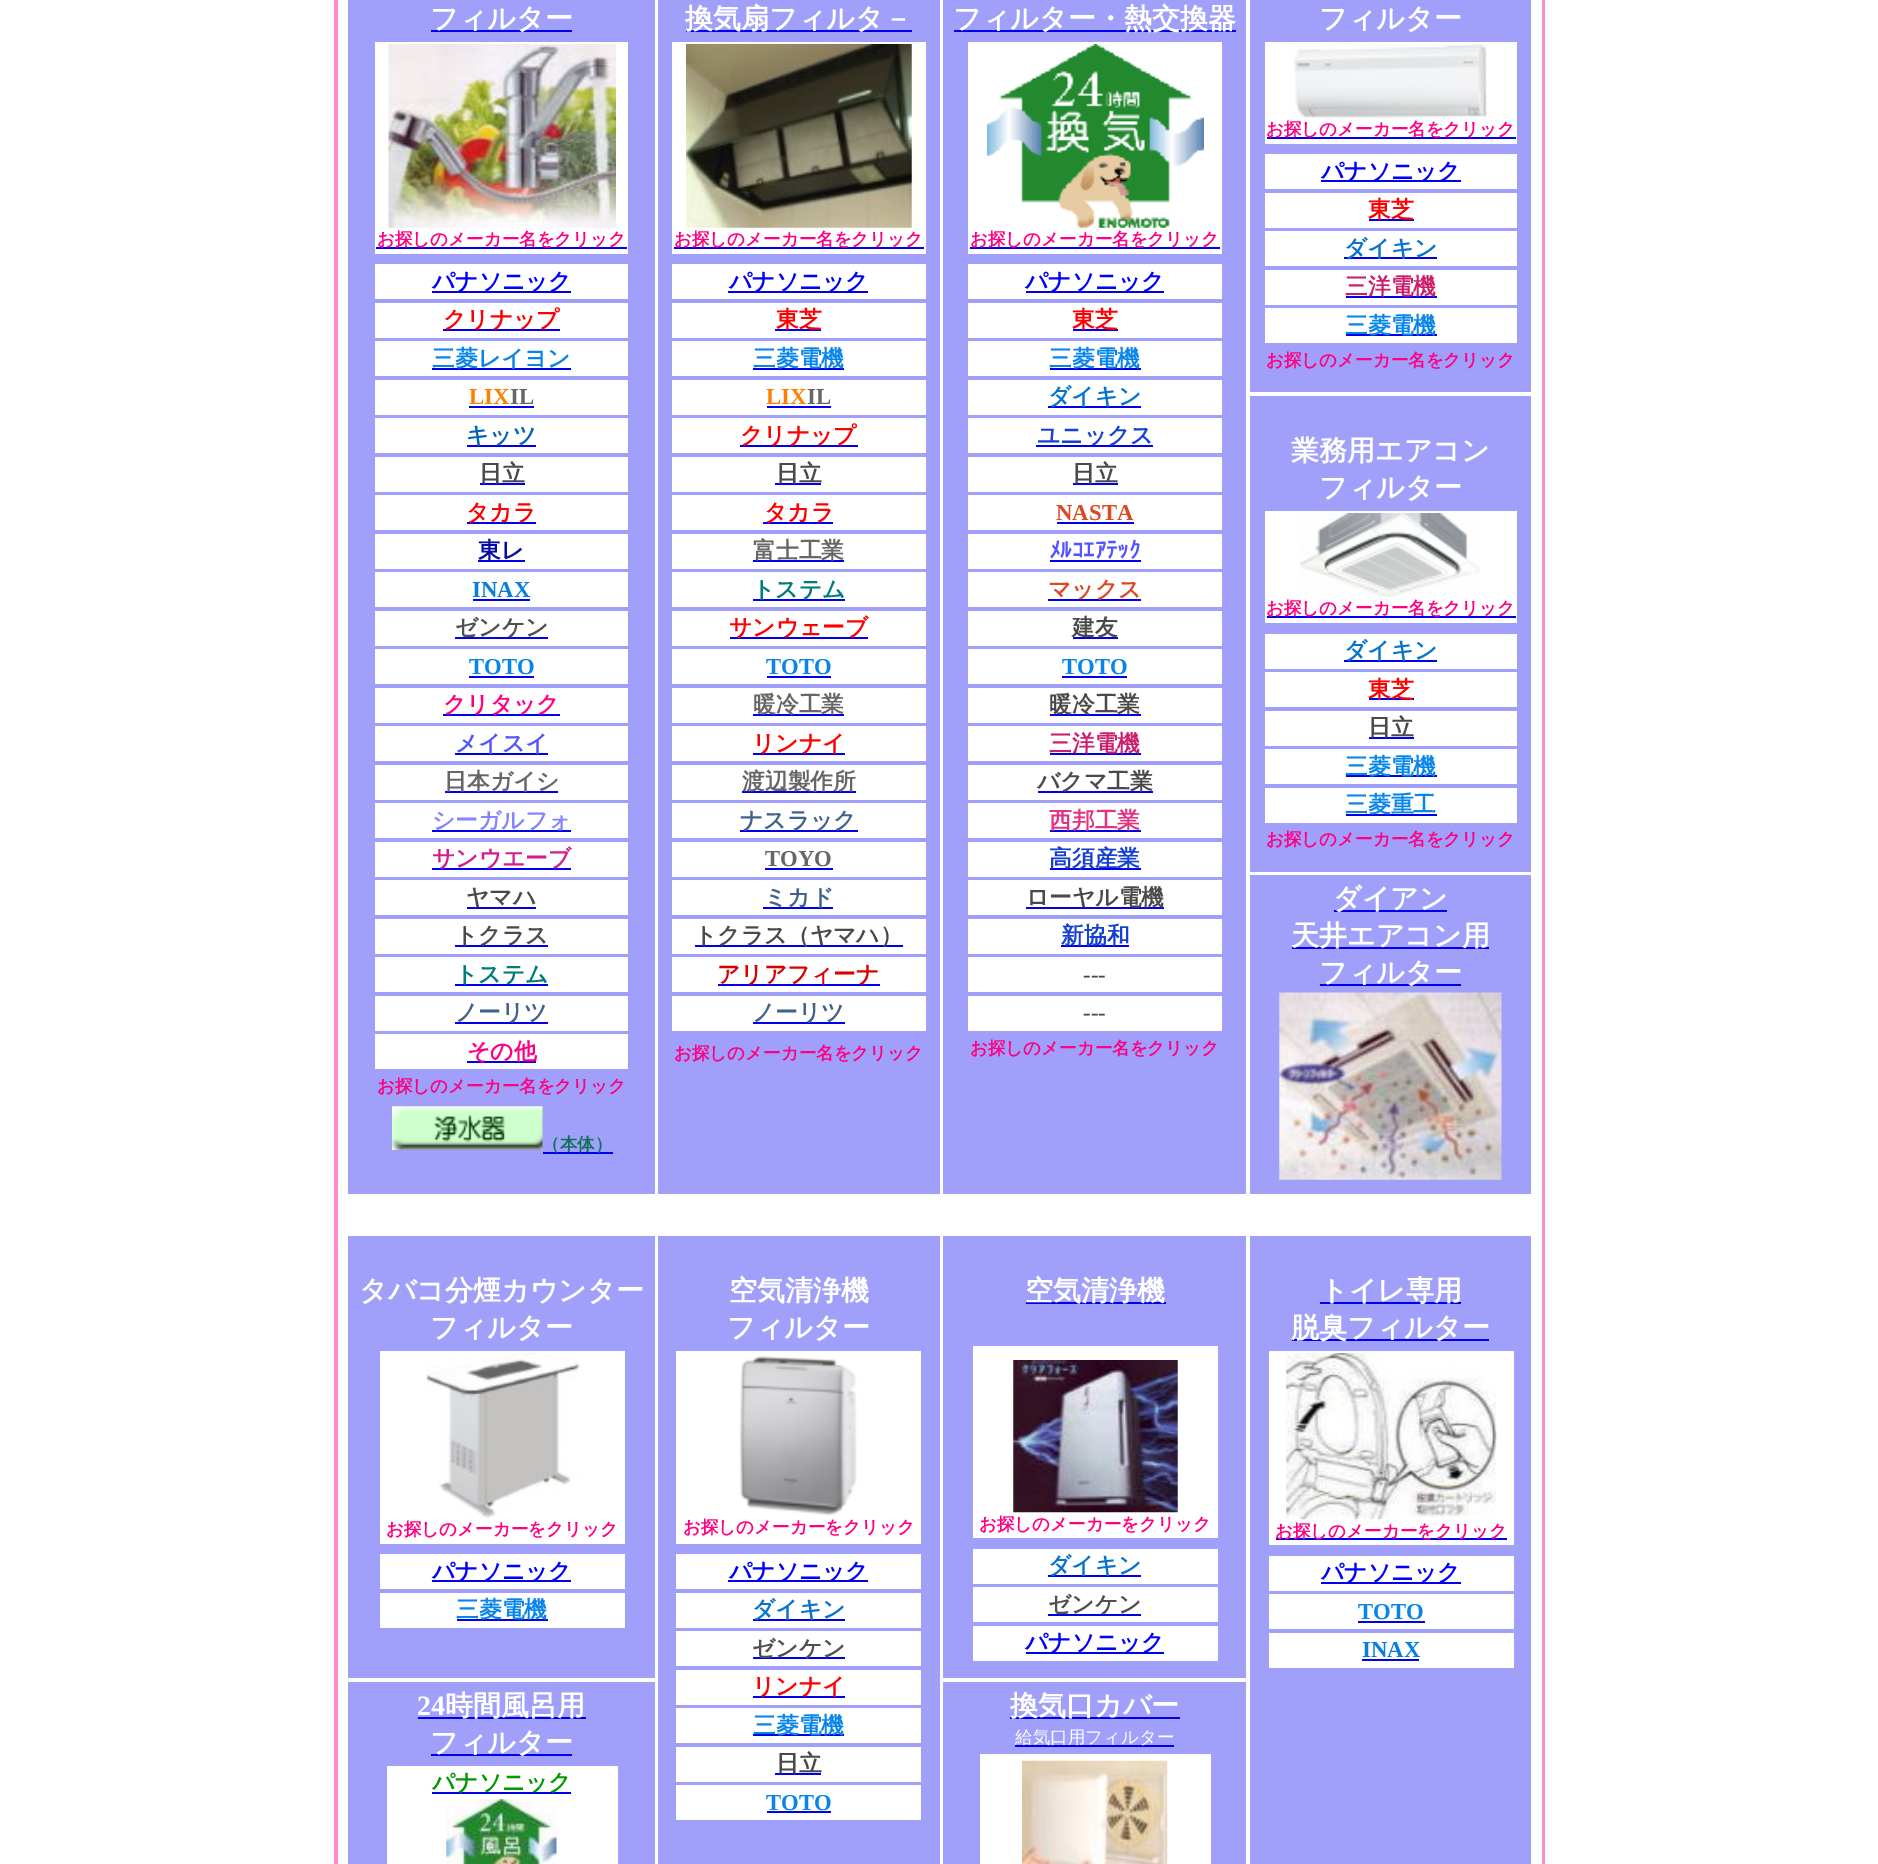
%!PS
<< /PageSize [1878 1864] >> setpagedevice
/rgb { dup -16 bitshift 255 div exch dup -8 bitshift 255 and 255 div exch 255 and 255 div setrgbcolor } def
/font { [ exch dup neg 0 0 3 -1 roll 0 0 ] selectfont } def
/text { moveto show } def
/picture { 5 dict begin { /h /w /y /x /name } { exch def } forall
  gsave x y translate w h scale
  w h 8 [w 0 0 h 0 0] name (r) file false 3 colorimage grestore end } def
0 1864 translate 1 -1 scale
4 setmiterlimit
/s1 { /WenQuanYiZenHei-Bold 28 font 16#FFFFFF rgb } def
/s2 { /WenQuanYiZenHei-Bold 17.5 font 16#FF0080 rgb } def
/s3 { /WenQuanYiZenHei-Bold 22.75 font 16#0000FF rgb } def
/s4 { /WenQuanYiZenHei-Bold 22.75 font 16#FF0000 rgb } def
/s5 { /WenQuanYiZenHei-Bold 22.75 font 16#0785EB rgb } def
/s6 { /LiberationSerif-Bold 22.75 font 16#FF8000 rgb } def
/s7 { /LiberationSerif-Bold 22.75 font 16#666666 rgb } def
/s8 { /WenQuanYiZenHei-Bold 22.75 font 16#0564B1 rgb } def
/s9 { /WenQuanYiZenHei-Bold 22.75 font 16#494949 rgb } def
/s10 { /WenQuanYiZenHei-Bold 22.75 font 16#060BA8 rgb } def
/s11 { /LiberationSerif-Bold 22.75 font 16#067EE1 rgb } def
/s12 { /WenQuanYiZenHei-Bold 22.75 font 16#505050 rgb } def
/s13 { /LiberationSerif-Bold 22.75 font 16#0785EB rgb } def
/s14 { /WenQuanYiZenHei-Bold 22.75 font 16#FF0080 rgb } def
/s15 { /WenQuanYiZenHei-Bold 22.75 font 16#5353FF rgb } def
/s16 { /WenQuanYiZenHei-Bold 22.75 font 16#666666 rgb } def
/s17 { /WenQuanYiZenHei-Bold 22.75 font 16#8484FF rgb } def
/s18 { /WenQuanYiZenHei-Bold 22.75 font 16#D31D8F rgb } def
/s19 { /WenQuanYiZenHei-Bold 22.75 font 16#007B7B rgb } def
/s20 { /WenQuanYiZenHei-Bold 22.75 font 16#41638B rgb } def
/s21 { /WenQuanYiZenHei-Bold 17.5 font 16#0F735A rgb } def
/s22 { /WenQuanYiZenHei-Bold 22.75 font 16#DD0000 rgb } def
/s23 { /WenQuanYiZenHei-Bold 22.75 font 16#0673CC rgb } def
/s24 { /WenQuanYiZenHei-Bold 22.75 font 16#1440D3 rgb } def
/s25 { /LiberationSerif-Bold 22.75 font 16#DD4722 rgb } def
/s26 { /IPAGothic-Bold 22.75 font 16#5353FF rgb } def
/s27 { /WenQuanYiZenHei-Bold 22.75 font 16#DD4722 rgb } def
/s28 { /WenQuanYiZenHei-Bold 22.75 font 16#CC1E6C rgb } def
/s29 { /WenQuanYiZenHei-Bold 22.75 font 16#E13382 rgb } def
/s30 { /LiberationSerif-Bold 22.75 font 16#494949 rgb } def
/s31 { /LiberationSerif-Bold 28 font 16#FFFFFF rgb } def
/s32 { /WenQuanYiZenHei-Bold 22.75 font 16#009900 rgb } def
/s33 { /WenQuanYiZenHei-Medium 17.5 font 16#FFFFFF rgb } def
16#FFFFFF rgb
0 0 1878 1864 rectfill
16#FF8CC6 rgb
334 0 1211 1864 rectfill
16#FFFFFF rgb
338 0 1204 1864 rectfill
16#A0A0FA rgb
348 0 307 1194 rectfill
16#0000EE rgb
431 30 141 2 rectfill
s1
(フィルター) 430 28 text
375 42 253 212 rectfill
(pic1.raw) 388 44 228 184 picture
16#0000EE rgb
376 247 251 2 rectfill
s2
(お探しのメーカー名をクリック) 377 245 text
16#FFFFFF rgb
375 264 253 35 rectfill
16#0000EE rgb
432 291 139 2 rectfill
s3
(パナソニック) 432 289 text
16#FFFFFF rgb
375 303 253 35 rectfill
16#0000EE rgb
443 329 117 2 rectfill
s4
(クリナップ) 443 327 text
16#FFFFFF rgb
375 341 253 35 rectfill
16#0000EE rgb
432 368 139 2 rectfill
s5
(三菱レイヨン) 432 366 text
16#FFFFFF rgb
375 380 253 35 rectfill
s6
(LIX) 469 404 text
16#0000EE rgb
469 406 65 2 rectfill
s7
(IL) 510 404 text
16#FFFFFF rgb
375 418 253 35 rectfill
16#0000EE rgb
467 445 69 2 rectfill
s8
(キッツ) 466 443 text
16#FFFFFF rgb
375 457 253 35 rectfill
16#0000EE rgb
480 483 45 2 rectfill
s9
(日立) 479 481 text
16#FFFFFF rgb
375 495 253 35 rectfill
16#0000EE rgb
467 522 69 2 rectfill
s4
(タカラ) 466 520 text
16#FFFFFF rgb
375 534 253 35 rectfill
16#0000EE rgb
478 560 47 2 rectfill
s10
(東レ) 478 558 text
16#FFFFFF rgb
375 572 253 35 rectfill
s11
(INAX) 472 597 text
16#0000EE rgb
473 599 57 2 rectfill
16#FFFFFF rgb
375 611 253 35 rectfill
16#0000EE rgb
455 637 93 2 rectfill
s12
(ゼンケン) 455 635 text
16#FFFFFF rgb
375 649 253 35 rectfill
s13
(TOTO) 469 674 text
16#0000EE rgb
469 676 65 2 rectfill
16#FFFFFF rgb
375 688 253 35 rectfill
16#0000EE rgb
443 714 117 2 rectfill
s14
(クリタック) 443 712 text
16#FFFFFF rgb
375 726 253 35 rectfill
16#0000EE rgb
455 753 93 2 rectfill
s15
(メイスイ) 455 751 text
16#FFFFFF rgb
375 765 253 35 rectfill
16#0000EE rgb
445 791 113 2 rectfill
s16
(日本ガイシ) 444 789 text
16#FFFFFF rgb
375 803 253 35 rectfill
16#0000EE rgb
432 830 139 2 rectfill
s17
(シーガルフォ) 432 828 text
16#FFFFFF rgb
375 842 253 35 rectfill
16#0000EE rgb
432 868 139 2 rectfill
s18
(サンウエーブ) 432 866 text
16#FFFFFF rgb
375 880 253 35 rectfill
16#0000EE rgb
467 907 69 2 rectfill
s9
(ヤマハ) 466 905 text
16#FFFFFF rgb
375 919 253 35 rectfill
16#0000EE rgb
455 945 93 2 rectfill
s9
(トクラス) 455 943 text
16#FFFFFF rgb
375 957 253 35 rectfill
16#0000EE rgb
455 984 93 2 rectfill
s19
(トステム) 455 982 text
16#FFFFFF rgb
375 996 253 35 rectfill
16#0000EE rgb
455 1022 93 2 rectfill
s20
(ノーリツ) 455 1020 text
16#FFFFFF rgb
375 1034 253 35 rectfill
16#0000EE rgb
467 1061 69 2 rectfill
s14
(その他) 467 1059 text
s2
(お探しのメーカー名をクリック) 377 1092 text
(pic2.raw) 392 1106 151 44 picture
16#0000EE rgb
543 1152 70 2 rectfill
s21
(（本体）) 542 1150 text
16#A0A0FA rgb
658 0 282 1194 rectfill
16#0000EE rgb
686 30 226 2 rectfill
s1
(換気扇フィルタ－) 685 28 text
672 42 254 212 rectfill
(pic3.raw) 686 44 226 184 picture
16#0000EE rgb
674 247 250 2 rectfill
s2
(お探しのメーカー名をクリック) 674 245 text
16#FFFFFF rgb
672 264 254 35 rectfill
16#0000EE rgb
728 291 140 2 rectfill
s3
(パナソニック) 729 289 text
16#FFFFFF rgb
672 303 254 35 rectfill
16#0000EE rgb
775 329 46 2 rectfill
s4
(東芝) 776 327 text
16#FFFFFF rgb
672 341 254 35 rectfill
16#0000EE rgb
753 368 91 2 rectfill
s5
(三菱電機) 753 366 text
16#FFFFFF rgb
672 380 254 35 rectfill
s6
(LIX) 766 404 text
16#0000EE rgb
767 406 64 2 rectfill
s7
(IL) 807 404 text
16#FFFFFF rgb
672 418 254 35 rectfill
16#0000EE rgb
740 445 118 2 rectfill
s4
(クリナップ) 740 443 text
16#FFFFFF rgb
672 457 254 35 rectfill
16#0000EE rgb
775 483 46 2 rectfill
s9
(日立) 776 481 text
16#FFFFFF rgb
672 495 254 35 rectfill
16#0000EE rgb
763 522 70 2 rectfill
s4
(タカラ) 764 520 text
16#FFFFFF rgb
672 534 254 35 rectfill
16#0000EE rgb
753 560 91 2 rectfill
s16
(富士工業) 753 558 text
16#FFFFFF rgb
672 572 254 35 rectfill
16#0000EE rgb
753 599 92 2 rectfill
s19
(トステム) 752 597 text
16#FFFFFF rgb
672 611 254 35 rectfill
16#0000EE rgb
730 637 138 2 rectfill
s4
(サンウェーブ) 729 635 text
16#FFFFFF rgb
672 649 254 35 rectfill
s13
(TOTO) 766 674 text
16#0000EE rgb
767 676 64 2 rectfill
16#FFFFFF rgb
672 688 254 35 rectfill
16#0000EE rgb
753 714 91 2 rectfill
s16
(暖冷工業) 753 712 text
16#FFFFFF rgb
672 726 254 35 rectfill
16#0000EE rgb
753 753 92 2 rectfill
s4
(リンナイ) 752 751 text
16#FFFFFF rgb
672 765 254 35 rectfill
16#0000EE rgb
742 791 114 2 rectfill
s16
(渡辺製作所) 742 789 text
16#FFFFFF rgb
672 803 254 35 rectfill
16#0000EE rgb
740 830 118 2 rectfill
s20
(ナスラック) 740 828 text
16#FFFFFF rgb
672 842 254 35 rectfill
s7
(TOYO) 765 866 text
16#0000EE rgb
765 868 68 2 rectfill
16#FFFFFF rgb
672 880 254 35 rectfill
16#0000EE rgb
763 907 70 2 rectfill
s20
(ミカド) 764 905 text
16#FFFFFF rgb
672 919 254 35 rectfill
16#0000EE rgb
695 945 208 2 rectfill
s9
(トクラス（ヤマハ）) 694 943 text
16#FFFFFF rgb
672 957 254 35 rectfill
16#0000EE rgb
718 984 162 2 rectfill
s22
(アリアフィーナ) 717 982 text
16#FFFFFF rgb
672 996 254 35 rectfill
16#0000EE rgb
753 1022 92 2 rectfill
s20
(ノーリツ) 752 1020 text
s2
(お探しのメーカー名をクリック) 674 1059 text
16#A0A0FA rgb
943 0 303 1194 rectfill
16#0000EE rgb
954 30 282 2 rectfill
s1
(フィルター・熱交換器) 953 28 text
968 42 254 212 rectfill
(pic4.raw) 987 44 217 184 picture
16#0000EE rgb
970 247 250 2 rectfill
s2
(お探しのメーカー名をクリック) 970 245 text
16#FFFFFF rgb
968 264 254 35 rectfill
16#0000EE rgb
1026 291 138 2 rectfill
s3
(パナソニック) 1025 289 text
16#FFFFFF rgb
968 303 254 35 rectfill
16#0000EE rgb
1073 329 45 2 rectfill
s4
(東芝) 1072 327 text
16#FFFFFF rgb
968 341 254 35 rectfill
16#0000EE rgb
1050 368 91 2 rectfill
s5
(三菱電機) 1049 366 text
16#FFFFFF rgb
968 380 254 35 rectfill
16#0000EE rgb
1048 406 93 2 rectfill
s23
(ダイキン) 1048 404 text
16#FFFFFF rgb
968 418 254 35 rectfill
16#0000EE rgb
1036 445 117 2 rectfill
s24
(ユニックス) 1037 443 text
16#FFFFFF rgb
968 457 254 35 rectfill
16#0000EE rgb
1073 483 45 2 rectfill
s9
(日立) 1072 481 text
16#FFFFFF rgb
968 495 254 35 rectfill
s25
(NASTA) 1056 520 text
16#0000EE rgb
1057 522 77 2 rectfill
16#FFFFFF rgb
968 534 254 35 rectfill
s26
(ﾒﾙｺｴｱﾃｯｸ) 1049 558 text
16#0000EE rgb
1050 560 91 2 rectfill
16#FFFFFF rgb
968 572 254 35 rectfill
16#0000EE rgb
1048 599 93 2 rectfill
s27
(マックス) 1048 597 text
16#FFFFFF rgb
968 611 254 35 rectfill
16#0000EE rgb
1073 637 45 2 rectfill
s9
(建友) 1072 635 text
16#FFFFFF rgb
968 649 254 35 rectfill
s13
(TOTO) 1062 674 text
16#0000EE rgb
1062 676 65 2 rectfill
16#FFFFFF rgb
968 688 254 35 rectfill
16#0000EE rgb
1050 714 91 2 rectfill
s9
(暖冷工業) 1049 712 text
16#FFFFFF rgb
968 726 254 35 rectfill
16#0000EE rgb
1050 753 91 2 rectfill
s28
(三洋電機) 1049 751 text
16#FFFFFF rgb
968 765 254 35 rectfill
16#0000EE rgb
1038 791 115 2 rectfill
s9
(バクマ工業) 1037 789 text
16#FFFFFF rgb
968 803 254 35 rectfill
16#0000EE rgb
1050 830 91 2 rectfill
s29
(西邦工業) 1049 828 text
16#FFFFFF rgb
968 842 254 35 rectfill
16#0000EE rgb
1050 868 91 2 rectfill
s24
(高須産業) 1049 866 text
16#FFFFFF rgb
968 880 254 35 rectfill
16#0000EE rgb
1026 907 138 2 rectfill
s9
(ローヤル電機) 1026 905 text
16#FFFFFF rgb
968 919 254 35 rectfill
16#0000EE rgb
1061 945 68 2 rectfill
s24
(新協和) 1061 943 text
16#FFFFFF rgb
968 957 254 35 rectfill
s30
(---) 1083 982 text
16#FFFFFF rgb
968 996 254 35 rectfill
s30
(---) 1083 1020 text
s2
(お探しのメーカー名をクリック) 970 1054 text
16#A0A0FA rgb
1250 0 281 392 rectfill
s1
(フィルター) 1319 28 text
1265 42 252 102 rectfill
(pic5.raw) 1293 44 194 74 picture
16#0000EE rgb
1267 137 249 2 rectfill
s2
(お探しのメーカー名をクリック) 1266 135 text
16#FFFFFF rgb
1265 154 252 35 rectfill
16#0000EE rgb
1321 180 140 2 rectfill
s3
(パナソニック) 1321 179 text
16#FFFFFF rgb
1265 193 252 35 rectfill
16#0000EE rgb
1369 219 45 2 rectfill
s4
(東芝) 1368 217 text
16#FFFFFF rgb
1265 231 252 35 rectfill
16#0000EE rgb
1344 257 93 2 rectfill
s23
(ダイキン) 1344 256 text
16#FFFFFF rgb
1265 270 252 35 rectfill
16#0000EE rgb
1346 296 91 2 rectfill
s28
(三洋電機) 1345 294 text
16#FFFFFF rgb
1265 308 252 35 rectfill
16#0000EE rgb
1346 334 91 2 rectfill
s5
(三菱電機) 1345 333 text
s2
(お探しのメーカー名をクリック) 1266 366 text
16#A0A0FA rgb
1250 396 281 476 rectfill
s1
(業務用エアコン) 1291 460 text
(フィルター) 1319 497 text
1265 511 252 112 rectfill
(pic6.raw) 1300 513 181 84 picture
16#0000EE rgb
1267 616 249 2 rectfill
s2
(お探しのメーカー名をクリック) 1266 614 text
16#FFFFFF rgb
1265 634 252 35 rectfill
16#0000EE rgb
1344 660 93 2 rectfill
s23
(ダイキン) 1344 658 text
16#FFFFFF rgb
1265 672 252 35 rectfill
16#0000EE rgb
1369 698 45 2 rectfill
s4
(東芝) 1368 697 text
16#FFFFFF rgb
1265 711 252 35 rectfill
16#0000EE rgb
1369 737 45 2 rectfill
s9
(日立) 1368 735 text
16#FFFFFF rgb
1265 749 252 35 rectfill
16#0000EE rgb
1346 775 91 2 rectfill
s5
(三菱電機) 1345 774 text
16#FFFFFF rgb
1265 788 252 35 rectfill
16#0000EE rgb
1346 814 91 2 rectfill
s5
(三菱重工) 1345 812 text
s2
(お探しのメーカー名をクリック) 1266 845 text
16#A0A0FA rgb
1250 875 281 319 rectfill
16#0000EE rgb
1334 910 113 2 rectfill
s1
(ダイアン) 1333 908 text
16#0000EE rgb
1292 947 197 2 rectfill
s1
(天井エアコン用) 1291 945 text
16#0000EE rgb
1320 984 141 2 rectfill
s1
(フィルター) 1319 982 text
(pic7.raw) 1279 992 223 188 picture
16#A0A0FA rgb
348 1236 307 442 rectfill
s1
(タバコ分煙カウンター) 359 1300 text
(フィルター) 430 1337 text
380 1351 245 193 rectfill
(pic8.raw) 426 1353 154 165 picture
s2
(お探しのメーカーをクリック) 386 1535 text
16#FFFFFF rgb
380 1554 245 35 rectfill
16#0000EE rgb
432 1580 139 2 rectfill
s3
(パナソニック) 432 1579 text
16#FFFFFF rgb
380 1593 245 35 rectfill
16#0000EE rgb
457 1619 91 2 rectfill
s5
(三菱電機) 456 1617 text
16#A0A0FA rgb
658 1236 282 628 rectfill
s1
(空気清浄機) 729 1300 text
(フィルター) 727 1337 text
676 1351 245 193 rectfill
(pic9.raw) 739 1356 118 160 picture
s2
(お探しのメーカーをクリック) 683 1533 text
16#FFFFFF rgb
676 1554 245 35 rectfill
16#0000EE rgb
728 1580 140 2 rectfill
s3
(パナソニック) 729 1579 text
16#FFFFFF rgb
676 1593 245 35 rectfill
16#0000EE rgb
753 1619 92 2 rectfill
s23
(ダイキン) 752 1617 text
16#FFFFFF rgb
676 1631 245 35 rectfill
16#0000EE rgb
753 1657 92 2 rectfill
s12
(ゼンケン) 752 1656 text
16#FFFFFF rgb
676 1670 245 35 rectfill
16#0000EE rgb
753 1696 92 2 rectfill
s4
(リンナイ) 752 1694 text
16#FFFFFF rgb
676 1708 245 35 rectfill
16#0000EE rgb
753 1734 91 2 rectfill
s5
(三菱電機) 753 1733 text
16#FFFFFF rgb
676 1747 245 35 rectfill
16#0000EE rgb
775 1773 46 2 rectfill
s9
(日立) 776 1771 text
16#FFFFFF rgb
676 1785 245 35 rectfill
s13
(TOTO) 766 1810 text
16#0000EE rgb
767 1811 64 2 rectfill
16#A0A0FA rgb
943 1236 303 442 rectfill
16#0000EE rgb
1026 1302 140 2 rectfill
s1
(空気清浄機) 1025 1300 text
973 1346 245 192 rectfill
(pic10.raw) 1013 1360 165 153 picture
s2
(お探しのメーカーをクリック) 979 1530 text
16#FFFFFF rgb
973 1549 245 35 rectfill
16#0000EE rgb
1048 1575 93 2 rectfill
s23
(ダイキン) 1048 1573 text
16#FFFFFF rgb
973 1587 245 35 rectfill
16#0000EE rgb
1048 1614 93 2 rectfill
s12
(ゼンケン) 1048 1612 text
16#FFFFFF rgb
973 1626 245 35 rectfill
16#0000EE rgb
1026 1652 138 2 rectfill
s3
(パナソニック) 1025 1650 text
16#A0A0FA rgb
1250 1236 281 628 rectfill
16#0000EE rgb
1320 1302 141 2 rectfill
s1
(トイレ専用) 1320 1300 text
16#0000EE rgb
1292 1339 197 2 rectfill
s1
(脱臭フィルター) 1291 1337 text
1269 1351 245 194 rectfill
(pic11.raw) 1286 1353 211 167 picture
16#0000EE rgb
1276 1538 231 2 rectfill
s2
(お探しのメーカーをクリック) 1275 1537 text
16#FFFFFF rgb
1269 1556 245 35 rectfill
16#0000EE rgb
1321 1582 140 2 rectfill
s3
(パナソニック) 1321 1580 text
16#FFFFFF rgb
1269 1594 245 35 rectfill
s13
(TOTO) 1358 1619 text
16#0000EE rgb
1358 1621 67 2 rectfill
16#FFFFFF rgb
1269 1633 245 35 rectfill
s11
(INAX) 1362 1657 text
16#0000EE rgb
1362 1659 57 2 rectfill
16#A0A0FA rgb
348 1682 307 182 rectfill
s31
(24) 417 1715 text
16#0000EE rgb
418 1717 168 2 rectfill
s1
(時間風呂用) 445 1715 text
16#0000EE rgb
431 1754 141 2 rectfill
s1
(フィルター) 430 1752 text
387 1766 231 98 rectfill
16#0000EE rgb
432 1792 139 2 rectfill
s32
(パナソニック) 432 1790 text
(pic12.raw) 446 1799 111 65 picture
16#A0A0FA rgb
943 1682 303 182 rectfill
16#0000EE rgb
1010 1717 170 2 rectfill
s1
(換気口カバー) 1010 1715 text
16#0000EE rgb
1015 1745 159 2 rectfill
s33
(給気口用フィルター) 1015 1743 text
980 1754 231 110 rectfill
(pic13.raw) 1022 1760 146 104 picture
showpage
